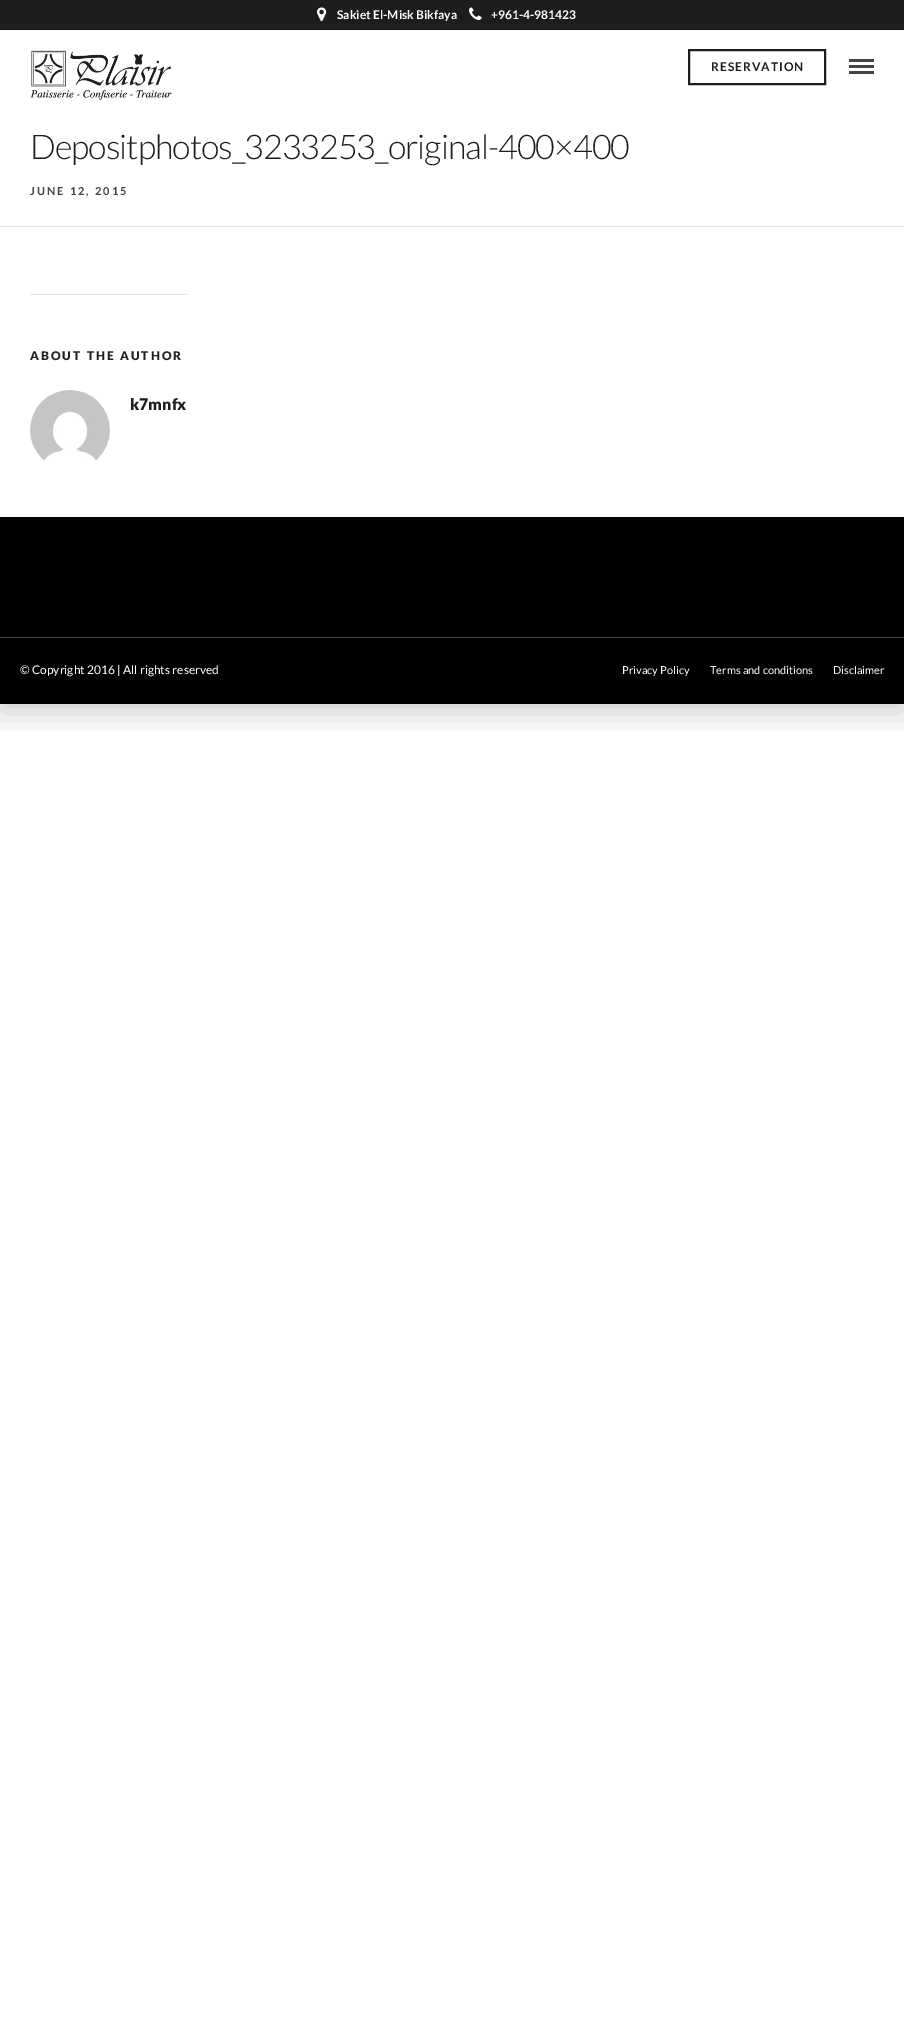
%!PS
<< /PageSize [904 2042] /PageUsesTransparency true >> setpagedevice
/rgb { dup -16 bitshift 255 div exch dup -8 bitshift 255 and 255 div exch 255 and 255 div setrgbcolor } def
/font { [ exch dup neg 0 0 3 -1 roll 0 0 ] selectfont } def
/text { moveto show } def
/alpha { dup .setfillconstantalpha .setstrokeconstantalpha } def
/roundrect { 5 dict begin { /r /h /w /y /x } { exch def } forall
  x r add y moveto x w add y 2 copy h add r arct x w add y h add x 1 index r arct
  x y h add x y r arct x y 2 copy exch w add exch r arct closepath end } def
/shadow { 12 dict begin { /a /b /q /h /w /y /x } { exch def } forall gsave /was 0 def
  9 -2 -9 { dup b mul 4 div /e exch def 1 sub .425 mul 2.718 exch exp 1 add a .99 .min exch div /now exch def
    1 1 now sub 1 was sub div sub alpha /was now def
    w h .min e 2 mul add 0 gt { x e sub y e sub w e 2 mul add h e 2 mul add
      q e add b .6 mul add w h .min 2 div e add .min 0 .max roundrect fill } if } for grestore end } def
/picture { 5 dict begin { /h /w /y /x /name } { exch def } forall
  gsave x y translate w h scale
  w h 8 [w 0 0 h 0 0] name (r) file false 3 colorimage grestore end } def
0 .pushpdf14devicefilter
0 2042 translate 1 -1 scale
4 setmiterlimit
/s1 { /Lato-Bold 12 font 16#FFFFFF rgb } def
/s2 { /Lato-Black 16 font 16#1D1D1B rgb } def
/s3 { /Lato-Regular 12 font 16#FFFFFF rgb } def
/s4 { /Lato-Regular 11 font 16#FFFFFF rgb } def
16#FFFFFF rgb
0 0 904 2042 rectfill
gsave
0 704 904 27 rectclip
16#000000 rgb
0 8 904 704 0 15 0.2 shadow
grestore
16#1D1D1B rgb
0 0 904 30 rectfill
(pic1.raw) 317 7 10 15 picture
s1
(Sakiet El-Misk Bikfaya) 337 19 text
(pic2.raw) 469 7 13 13 picture
(+961-4-981423) 491 19 text
(pic3.raw) 30 50 142 50 picture
16#1D1D1B rgb
2 setlinewidth
689 50 136 34 rectstroke
711 71 moveto 1 0 (RESERVATION) ashow
16#444444 rgb
849 59 25 3 rectfill
849 65 25 3 rectfill
849 71 25 3 rectfill
16#E1E1E1 rgb
0 226 904 1 rectfill
/Lato-Light 34 font
16#1D1D1B rgb
30 159 moveto -1 0 (Depositphotos_3233253_original-400×400) ashow
/Lato-Bold 11 font
16#424242 rgb
30 195 moveto 2 0 (JUNE 12, 2015) ashow
16#E1E1E1 rgb
30 294 157 1 rectfill
/Lato-Black 12 font
16#222222 rgb
30 360 moveto 2 0 (ABOUT THE AUTHOR) ashow
(pic4.raw) 30 390 80 71 picture
s2
(k7mnfx) 130 410 text
16#000000 rgb
0 517 904 187 rectfill
16#444444 rgb
0 637 904 1 rectfill
s3
(© Copyright 2016 | All rights reserved) 20 674 text
s4
(Privacy Policy) 622 674 text
(Terms and conditions) 710 674 text
(Disclaimer) 833 674 text
.poppdf14devicefilter showpage
